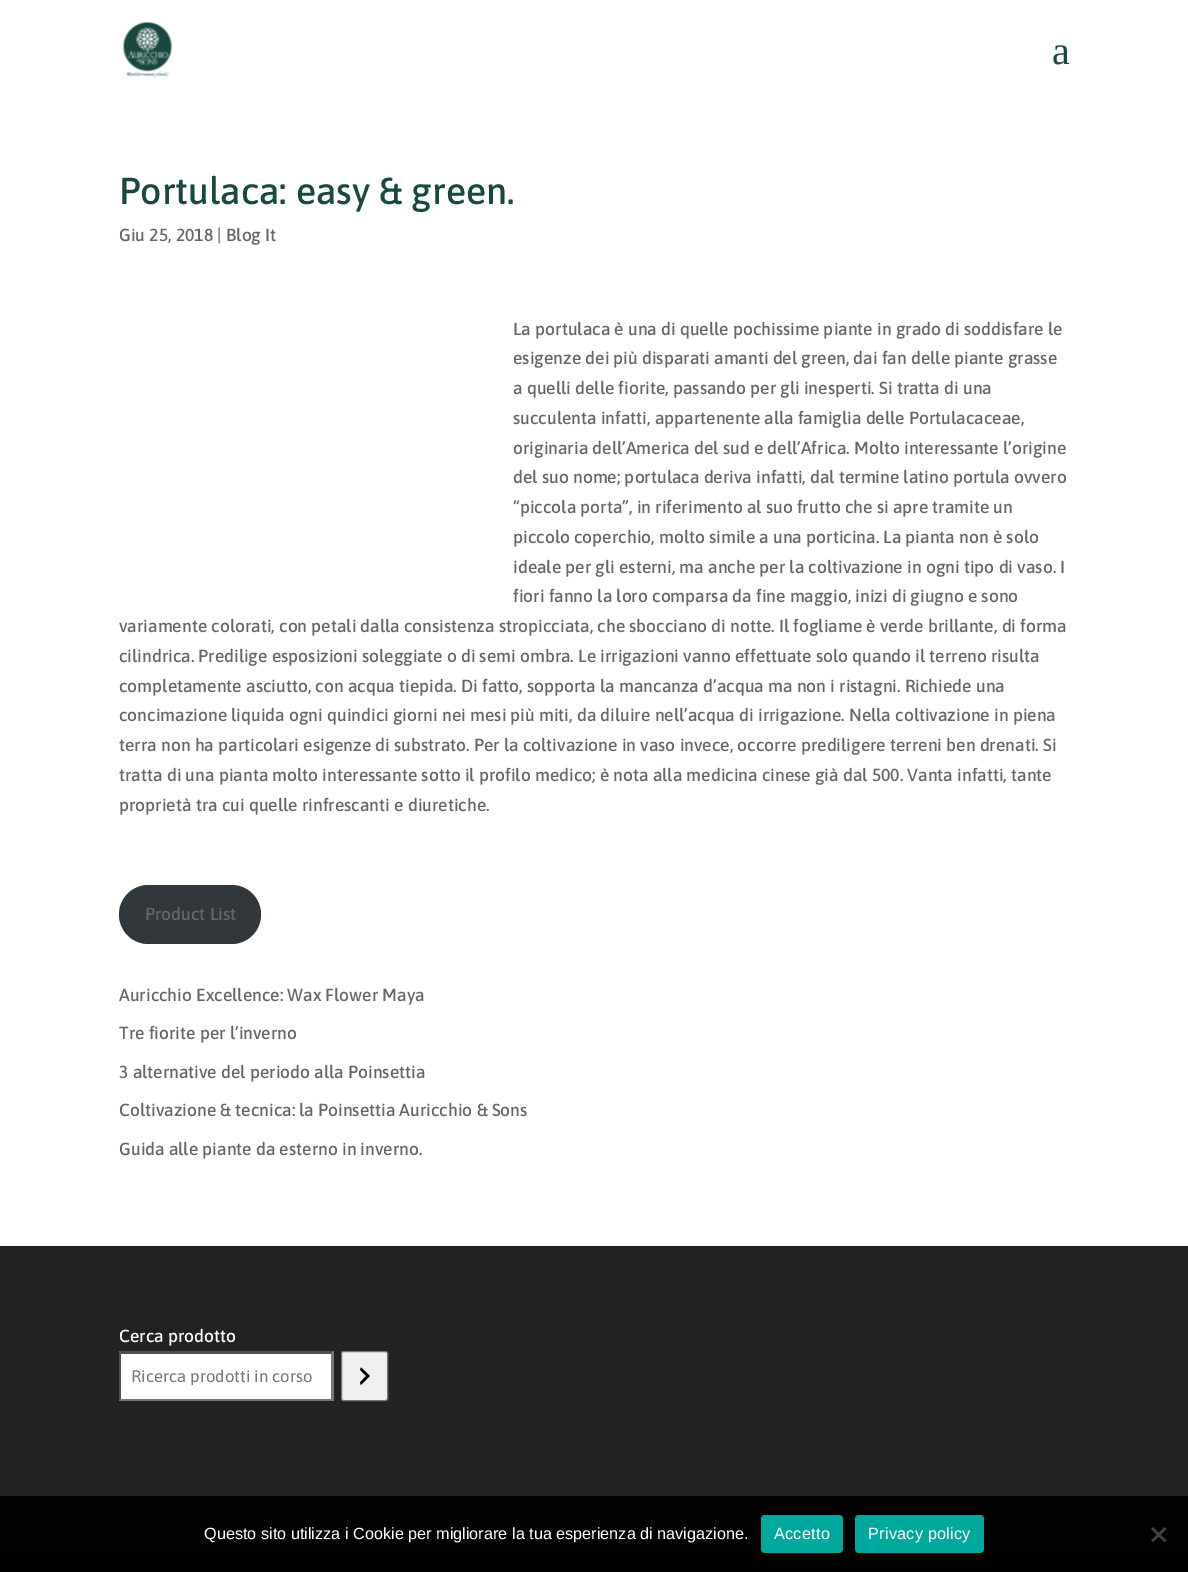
%!PS
<< /PageSize [1188 1572] >> setpagedevice
/rgb { dup -16 bitshift 255 div exch dup -8 bitshift 255 and 255 div exch 255 and 255 div setrgbcolor } def
/font { [ exch dup neg 0 0 3 -1 roll 0 0 ] selectfont } def
/text { moveto show } def
/roundrect { 5 dict begin { /r /h /w /y /x } { exch def } forall
  x r add y moveto x w add y 2 copy h add r arct x w add y h add x 1 index r arct
  x y h add x y r arct x y 2 copy exch w add exch r arct closepath end } def
/picture { 5 dict begin { /h /w /y /x /name } { exch def } forall
  gsave x y translate w h scale
  w h 8 [w 0 0 h 0 0] name (r) file false 3 colorimage grestore end } def
0 1572 translate 1 -1 scale
4 setmiterlimit
/s1 { /LiberationSerif-Regular 40 font 16#18483F rgb } def
/s2 { /Asap-Medium 37.5 font 16#18483F rgb } def
/s3 { /Asap-Medium 17.5 font 16#666666 rgb } def
/s4 { /Asap-Medium 17.5 font 16#FFFFFF rgb } def
/s5 { /Asap-Regular 16.75 font 16#757575 rgb } def
/s6 { /LiberationSans-Regular 16.25 font 16#FFFFFF rgb } def
16#FFFFFF rgb
0 0 1188 1572 rectfill
(pic1.raw) 123 22 49 56 picture
s1
(a) 1052 64 text
s2
(Portulaca: easy & green.) 119 204 text
s3
(Giu 25, 2018 | Blog It) 119 241 text
(La portulaca è una di quelle pochissime piante in grado di soddisfare le) 513 335 text
(esigenze dei più disparati amanti del green, dai fan delle piante grasse) 513 364 text
(a quelli delle fiorite, passando per gli inesperti. Si tratta di una) 513 394 text
(succulenta infatti, appartenente alla famiglia delle Portulacaceae,) 513 424 text
(originaria dell’America del sud e dell’Africa. Molto interessante l’origine) 513 454 text
(del suo nome; portulaca deriva infatti, dal termine latino portula ovvero) 513 483 text
(“piccola porta”, in riferimento al suo frutto che si apre tramite un) 513 513 text
(piccolo coperchio, molto simile a una porticina. La pianta non è solo) 513 543 text
(ideale per gli esterni, ma anche per la coltivazione in ogni tipo di vaso. I) 513 573 text
(fiori fanno la loro comparsa da fine maggio, inizi di giugno e sono) 513 602 text
(variamente colorati, con petali dalla consistenza stropicciata, che sbocciano di notte. Il fogliame è verde brillante, di forma) 119 632 text
(cilindrica. Predilige esposizioni soleggiate o di semi ombra. Le irrigazioni vanno effettuate solo quando il terreno risulta) 119 662 text
(completamente asciutto, con acqua tiepida. Di fatto, sopporta la mancanza d’acqua ma non i ristagni. Richiede una) 119 692 text
(concimazione liquida ogni quindici giorni nei mesi più miti, da diluire nell’acqua di irrigazione. Nella coltivazione in piena) 119 721 text
(terra non ha particolari esigenze di substrato. Per la coltivazione in vaso invece, occorre prediligere terreni ben drenati. Si) 119 751 text
(tratta di una pianta molto interessante sotto il profilo medico; è nota alla medicina cinese già dal 500. Vanta infatti, tante) 119 781 text
(proprietà tra cui quelle rinfrescanti e diuretiche.) 119 811 text
16#32373C rgb
119 885 142 59 29.5 roundrect fill
s3
(Product List) 145 920 text
(Auricchio Excellence: Wax Flower Maya) 119 1001 text
(Tre fiorite per l’inverno) 119 1039 text
(3 alternative del periodo alla Poinsettia) 119 1078 text
(Coltivazione & tecnica: la Poinsettia Auricchio & Sons) 119 1116 text
(Guida alle piante da esterno in inverno.) 119 1155 text
16#222222 rgb
0 1246 1188 250 rectfill
16#020202 rgb
0 1496 1188 53 rectfill
s4
(Cerca prodotto) 119 1342 text
119 1351 215 50 rectfill
16#4F4F4F rgb
119 1351 moveto 334 1351 lineto 331 1354 lineto 121 1354 lineto closepath fill
16#767676 rgb
334 1351 moveto 334 1401 lineto 331 1399 lineto 331 1354 lineto closepath fill
334 1401 moveto 119 1401 lineto 121 1399 lineto 331 1399 lineto closepath fill
16#4F4F4F rgb
119 1401 moveto 119 1351 lineto 121 1354 lineto 121 1399 lineto closepath fill
gsave
131 1366 185 19 rectclip
s5
(Ricerca prodotti in corso) 131 1382 text
grestore
16#EFEFEF rgb
341.5 1351.5 46 49 2 roundrect gsave fill grestore
16#767676 rgb
stroke
16#000000 rgb
360 1382.5 moveto 366 1376 lineto 360 1370 lineto 361 1367.5 lineto 370 1376 lineto 361 1385 lineto closepath fill
0 1549 1188 23 rectfill
s6
(Questo sito utilizza i Cookie per migliorare la tua esperienza di navigazione.) 204 1539 text
16#00A99D rgb
761 1515 82 38 4 roundrect fill
16#FFFFFF rgb
774 1539 moveto 0.25 0 (Accetto) ashow
16#00A99D rgb
855 1515 129 38 4 roundrect fill
16#FFFFFF rgb
868 1539 moveto 0.25 0 (Privacy policy) ashow
16#414141 rgb
1164.5 1527 moveto 1166.5 1529 lineto 1153 1542 lineto 1151 1540.5 lineto closepath fill
1151 1529 moveto 1153 1527 lineto 1166.5 1540.5 lineto 1164.5 1542 lineto closepath fill
showpage
